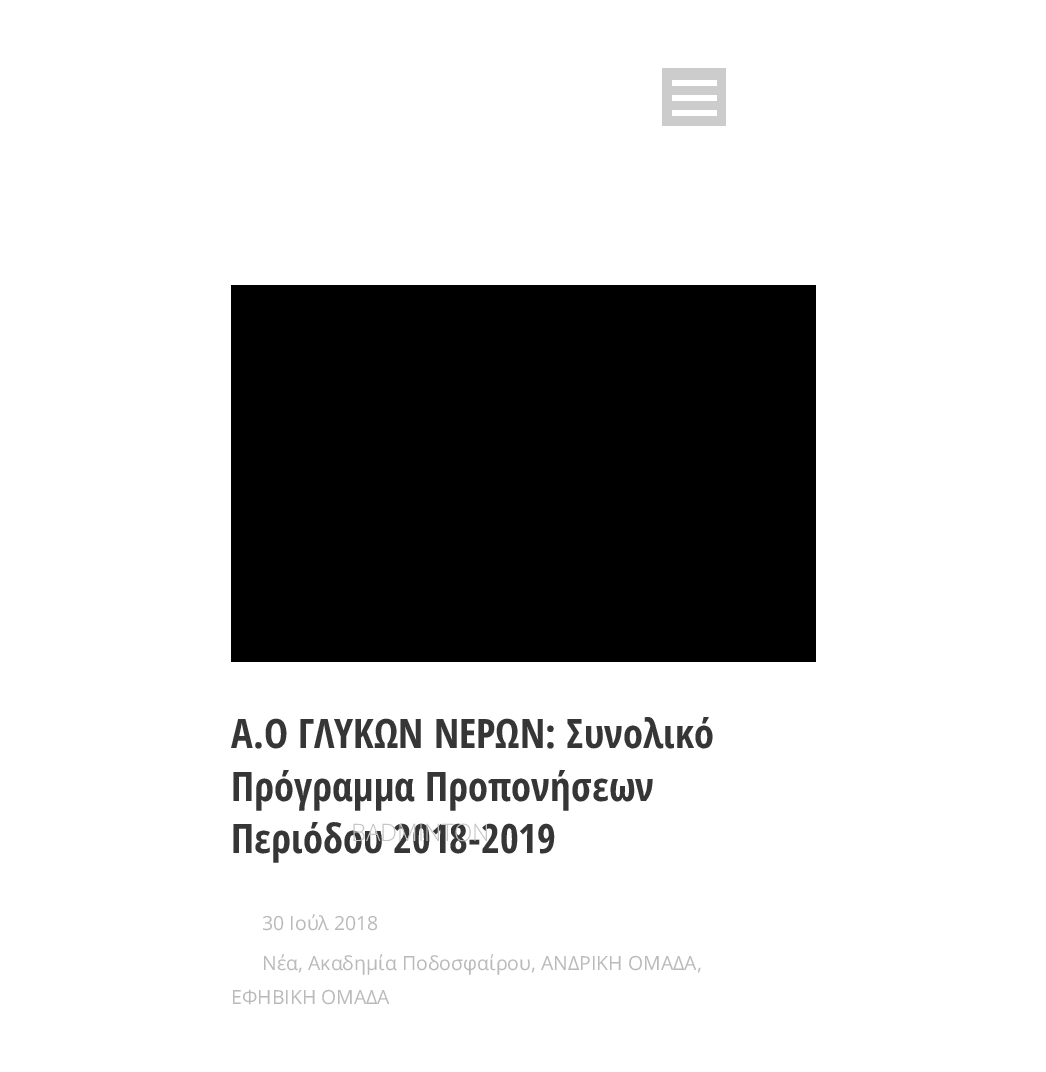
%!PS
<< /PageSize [1046 1072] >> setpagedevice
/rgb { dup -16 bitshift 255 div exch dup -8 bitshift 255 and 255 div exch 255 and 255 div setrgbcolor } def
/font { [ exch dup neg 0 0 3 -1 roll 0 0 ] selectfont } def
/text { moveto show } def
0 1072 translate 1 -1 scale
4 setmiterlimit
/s1 { /OpenSansCondensed-Bold 40.5 font 16#363636 rgb } def
/s2 { /OpenSans-Regular 19.5 font 16#BABABA rgb } def
/s3 { /OpenSans-Light 24 font 16#C5C5C5 rgb } def
16#FFFFFF rgb
0 0 1046 1072 rectfill
16#000000 rgb
231 285 585 377 rectfill
s1
(Α.Ο ΓΛΥΚΩΝ ΝΕΡΩΝ: Συνολικό) 231 748 text
(Πρόγραμμα Προπονήσεων) 231 801 text
(Περιόδου 2018-2019) 231 853 text
s2
(30 Ιούλ 2018) 262 930 text
(Νέα, Ακαδημία Ποδοσφαίρου, ΑΝΔΡΙΚΗ ΟΜΑΔΑ,) 262 970 text
(ΕΦΗΒΙΚΗ ΟΜΑΔΑ) 231 1004 text
16#CCCCCC rgb
662 68 64 58 rectfill
16#FFFFFF rgb
672 110 45 6 rectfill
672 95 45 6 rectfill
672 80 45 6 rectfill
s3
(BADMINTON) 351 841 text
showpage
